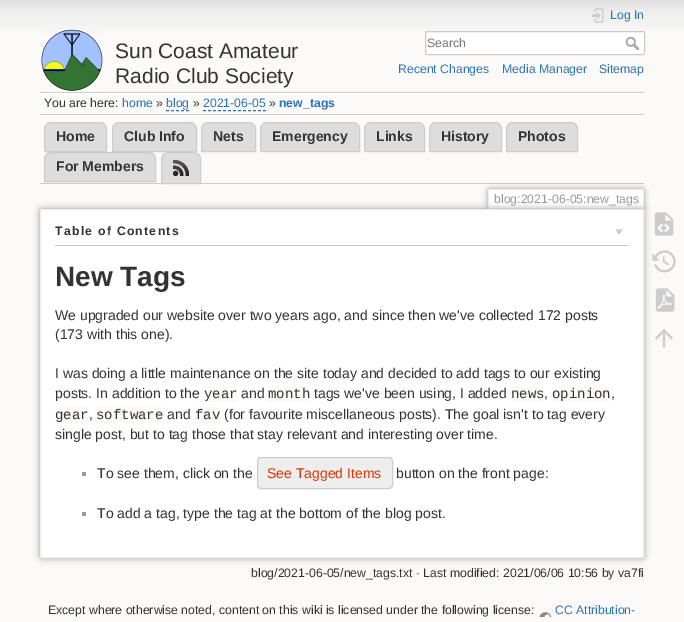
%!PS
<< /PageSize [684 622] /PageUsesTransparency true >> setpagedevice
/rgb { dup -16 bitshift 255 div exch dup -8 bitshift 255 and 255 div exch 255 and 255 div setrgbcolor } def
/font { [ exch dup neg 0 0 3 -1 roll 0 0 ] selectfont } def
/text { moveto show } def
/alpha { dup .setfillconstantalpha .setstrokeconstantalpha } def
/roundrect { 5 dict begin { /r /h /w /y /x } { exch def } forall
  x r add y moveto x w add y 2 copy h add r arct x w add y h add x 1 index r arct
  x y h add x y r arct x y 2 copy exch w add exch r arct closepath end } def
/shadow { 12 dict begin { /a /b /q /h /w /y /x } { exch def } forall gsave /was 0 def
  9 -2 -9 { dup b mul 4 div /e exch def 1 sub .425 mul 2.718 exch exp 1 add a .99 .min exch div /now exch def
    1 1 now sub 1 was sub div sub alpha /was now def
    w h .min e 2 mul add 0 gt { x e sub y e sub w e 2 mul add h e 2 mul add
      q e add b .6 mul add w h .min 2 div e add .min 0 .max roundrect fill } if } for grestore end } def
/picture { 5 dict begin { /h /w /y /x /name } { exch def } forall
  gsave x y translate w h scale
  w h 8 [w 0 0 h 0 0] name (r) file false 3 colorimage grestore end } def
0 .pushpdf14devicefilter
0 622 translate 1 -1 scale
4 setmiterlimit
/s1 { /LiberationSans-Regular 21 font 16#333333 rgb } def
/s2 { /LiberationSans-Regular 12.25 font 16#2B73B7 rgb } def
/s3 { /LiberationSans-Regular 12.25 font 16#757575 rgb } def
/s4 { /LiberationSans-Regular 12.25 font 16#333333 rgb } def
/s5 { /LiberationSans-Bold 12.25 font 16#2B73B7 rgb } def
/s6 { /LiberationSans-Bold 14 font 16#333333 rgb } def
/s7 { /LiberationSans-Regular 12.25 font 16#999999 rgb } def
/s8 { /LiberationSans-Bold 28 font 16#333333 rgb } def
/s9 { /LiberationSans-Regular 14 font 16#333333 rgb } def
/s10 { /LiberationMono-Regular 14 font 16#333333 rgb } def
/s11 { /LiberationSans-Regular 14 font 16#DD3300 rgb } def
16#FBFAF9 rgb
0 0 684 622 rectfill
(pic1.raw) 0 0 684 31 picture
(pic2.raw) 41 29 62 62 picture
s1
(Sun Coast Amateur) 115 58 text
(Radio Club Society) 115 83 text
(pic3.raw) 592 8 12 15 picture
s2
(Log In) 610 19 text
16#FFFFFF rgb
425.5 31.5 219 23 1.5 roundrect gsave fill grestore
16#CCCCCC rgb
stroke
s3
(Search) 427 47 text
(pic4.raw) 625 36 14 14 picture
s2
(Recent Changes) 398 73 text
(Media Manager) 502 73 text
(Sitemap) 599 73 text
16#CCCCCC rgb
40 92 604 1 rectfill
16#FFFFFF rgb
40 115 604 1 rectfill
40 93 604 1 rectfill
16#CCCCCC rgb
40 114 604 1 rectfill
s4
(You are here:) 44 107 text
s2
(home) 122 107 text
s4
(») 156 107 text
s2
(blog) 166 107 text
[3 2] 0 setdash
166 110.5 moveto 189 110.5 lineto stroke
s4
(») 193 107 text
s2
(2021-06-05) 203 107 text
203 110.5 moveto 266 110.5 lineto stroke
s4
(») 269 107 text
s5
(new_tags) 279 107 text
16#DDDDDD rgb
51 122.5 moveto 100 122.5 lineto 103.5 122.5 106.5 125.5 106.5 129 curveto 106.5 151.5 lineto 44.5 151.5 lineto 44.5 129 lineto 44.5 125.5 47.5 122.5 51 122.5 curveto closepath gsave fill grestore
16#CCCCCC rgb
[] 0 setdash
stroke
s6
(Home) 56 141 text
16#DDDDDD rgb
119 122.5 moveto 190 122.5 lineto 193.5 122.5 196.5 125.5 196.5 129 curveto 196.5 151.5 lineto 112.5 151.5 lineto 112.5 129 lineto 112.5 125.5 115.5 122.5 119 122.5 curveto closepath gsave fill grestore
16#CCCCCC rgb
stroke
s6
(Club Info) 124 141 text
16#DDDDDD rgb
208 122.5 moveto 249 122.5 lineto 252.5 122.5 255.5 125.5 255.5 129 curveto 255.5 151.5 lineto 201.5 151.5 lineto 201.5 129 lineto 201.5 125.5 204.5 122.5 208 122.5 curveto closepath gsave fill grestore
16#CCCCCC rgb
stroke
s6
(Nets) 213 141 text
16#DDDDDD rgb
267 122.5 moveto 353 122.5 lineto 356.5 122.5 359.5 125.5 359.5 129 curveto 359.5 151.5 lineto 260.5 151.5 lineto 260.5 129 lineto 260.5 125.5 263.5 122.5 267 122.5 curveto closepath gsave fill grestore
16#CCCCCC rgb
stroke
s6
(Emergency) 272 141 text
16#DDDDDD rgb
371 122.5 moveto 418 122.5 lineto 421.5 122.5 424.5 125.5 424.5 129 curveto 424.5 151.5 lineto 364.5 151.5 lineto 364.5 129 lineto 364.5 125.5 367.5 122.5 371 122.5 curveto closepath gsave fill grestore
16#CCCCCC rgb
stroke
s6
(Links) 376 141 text
16#DDDDDD rgb
436 122.5 moveto 495 122.5 lineto 498.5 122.5 501.5 125.5 501.5 129 curveto 501.5 151.5 lineto 429.5 151.5 lineto 429.5 129 lineto 429.5 125.5 432.5 122.5 436 122.5 curveto closepath gsave fill grestore
16#CCCCCC rgb
stroke
s6
(History) 441 141 text
16#DDDDDD rgb
513 122.5 moveto 571 122.5 lineto 574.5 122.5 577.5 125.5 577.5 129 curveto 577.5 151.5 lineto 506.5 151.5 lineto 506.5 129 lineto 506.5 125.5 509.5 122.5 513 122.5 curveto closepath gsave fill grestore
16#CCCCCC rgb
stroke
s6
(Photos) 518 141 text
16#DDDDDD rgb
51 152.5 moveto 149 152.5 lineto 152.5 152.5 155.5 155.5 155.5 159 curveto 155.5 181.5 lineto 44.5 181.5 lineto 44.5 159 lineto 44.5 155.5 47.5 152.5 51 152.5 curveto closepath gsave fill grestore
16#CCCCCC rgb
stroke
s6
(For Members) 56 171 text
16#DDDDDD rgb
168 152.5 moveto 194 152.5 lineto 197.5 152.5 200.5 155.5 200.5 159 curveto 200.5 183.5 lineto 161.5 183.5 lineto 161.5 159 lineto 161.5 155.5 164.5 152.5 168 152.5 curveto closepath gsave fill grestore
16#CCCCCC rgb
stroke
(pic5.raw) 173 160 16 16 picture
40 183 604 1 rectfill
gsave
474 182 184 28 rectclip
16#999999 rgb
488 189 156 21 2 3 1 shadow
grestore
16#FFFFFF rgb
490 190 moveto 642 190 lineto 642.5 190 643 190.5 643 191 curveto 643 210 lineto 489 210 lineto 489 191 lineto 489 190.5 489.5 190 490 190 curveto closepath fill
16#EEEEEE rgb
489 189 154 1 rectfill
643 190 1 20 rectfill
488 190 1 20 rectfill
s7
(blog:2021-06-05:new_tags) 494 203 text
40 209 604 349 2 3.5 1 shadow
16#FFFFFF rgb
40.5 209.5 603 348 1.5 roundrect gsave fill grestore
16#EEEEEE rgb
stroke
16#CCCCCC rgb
55 245 574 1 rectfill
/LiberationSans-Bold 12.25 font
16#333333 rgb
55 235 moveto 1.25 0 (Table of Contents) ashow
(pic6.raw) 615 229 8 5 picture
s8
(New Tags) 55 286 text
s9
(We upgraded our website over two years ago, and since then we've collected 172 posts) 55 320 text
(\(173 with this one\).) 55 339 text
(I was doing a little maintenance on the site today and decided to add tags to our existing) 55 378 text
(posts. In addition to the) 55 398 text
16#FBFAF9 rgb
204 386 33 16 2 roundrect fill
s10
(year) 204 398 text
s9
(and) 241 398 text
16#FBFAF9 rgb
268 386 42 16 2 roundrect fill
s10
(month) 268 398 text
s9
(tags we've been using, I added) 314 398 text
16#FBFAF9 rgb
511 386 33 16 2 roundrect fill
s10
(news) 511 398 text
s9
(,) 544 398 text
16#FBFAF9 rgb
552 386 59 16 2 roundrect fill
s10
(opinion) 552 398 text
s9
(,) 611 398 text
16#FBFAF9 rgb
55 407 34 16 2 roundrect fill
s10
(gear) 55 419 text
s9
(,) 89 419 text
16#FBFAF9 rgb
96 407 68 16 2 roundrect fill
s10
(software) 96 419 text
s9
(and) 167 419 text
16#FBFAF9 rgb
195 407 25 16 2 roundrect fill
s10
(fav) 195 419 text
s9
(\(for favourite miscellaneous posts\). The goal isn't to tag every) 224 419 text
(single post, but to tag those that stay relevant and interesting over time.) 55 439 text
16#999999 rgb
82 472 4 4 rectfill
s9
(To see them, click on the) 97 478 text
16#EEEEEE rgb
257.5 457.5 135 31 3.5 roundrect gsave fill grestore
16#CCCCCC rgb
stroke
s11
(See Tagged Items) 267 478 text
s9
(button on the front page:) 396 478 text
16#999999 rgb
82 512 4 4 rectfill
s9
(To add a tag, type the tag at the bottom of the blog post.) 97 518 text
s4
(blog/2021-06-05/new_tags.txt · Last modified: 2021/06/06 10:56 by va7fi) 251 577 text
(pic7.raw) 654 212 20 24 picture
(pic8.raw) 652 250 24 23 picture
(pic9.raw) 655 288 20 24 picture
(pic10.raw) 655 329 18 19 picture
(Except where otherwise noted, content on this wiki is licensed under the following license:) 48 614 text
(pic11.raw) 539 612 13 5 picture
s2
(CC Attribution-) 555 614 text
.poppdf14devicefilter showpage
